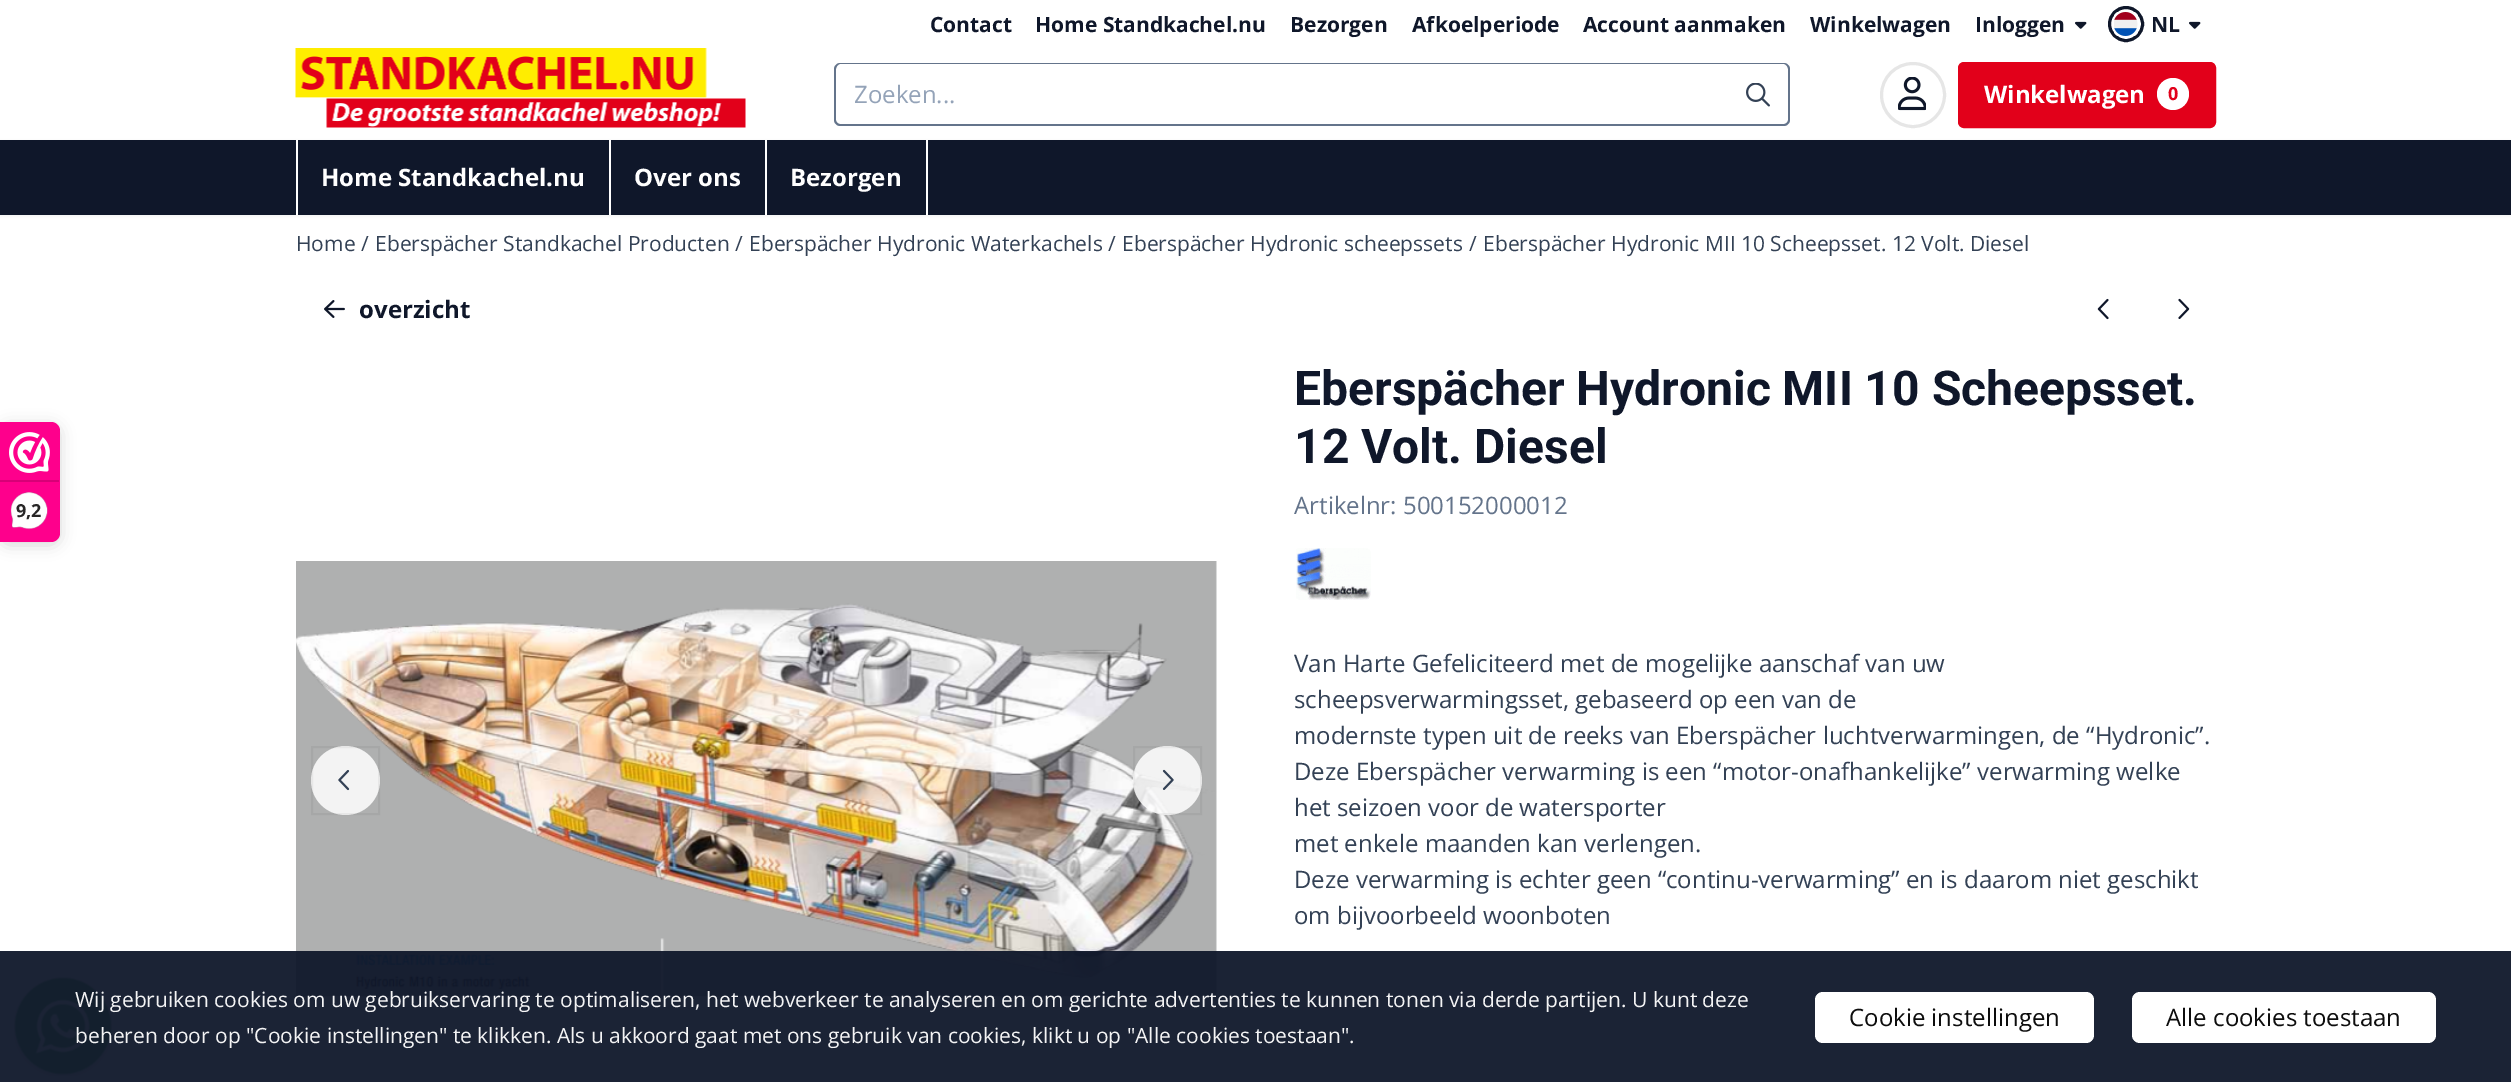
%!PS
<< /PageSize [2511 1082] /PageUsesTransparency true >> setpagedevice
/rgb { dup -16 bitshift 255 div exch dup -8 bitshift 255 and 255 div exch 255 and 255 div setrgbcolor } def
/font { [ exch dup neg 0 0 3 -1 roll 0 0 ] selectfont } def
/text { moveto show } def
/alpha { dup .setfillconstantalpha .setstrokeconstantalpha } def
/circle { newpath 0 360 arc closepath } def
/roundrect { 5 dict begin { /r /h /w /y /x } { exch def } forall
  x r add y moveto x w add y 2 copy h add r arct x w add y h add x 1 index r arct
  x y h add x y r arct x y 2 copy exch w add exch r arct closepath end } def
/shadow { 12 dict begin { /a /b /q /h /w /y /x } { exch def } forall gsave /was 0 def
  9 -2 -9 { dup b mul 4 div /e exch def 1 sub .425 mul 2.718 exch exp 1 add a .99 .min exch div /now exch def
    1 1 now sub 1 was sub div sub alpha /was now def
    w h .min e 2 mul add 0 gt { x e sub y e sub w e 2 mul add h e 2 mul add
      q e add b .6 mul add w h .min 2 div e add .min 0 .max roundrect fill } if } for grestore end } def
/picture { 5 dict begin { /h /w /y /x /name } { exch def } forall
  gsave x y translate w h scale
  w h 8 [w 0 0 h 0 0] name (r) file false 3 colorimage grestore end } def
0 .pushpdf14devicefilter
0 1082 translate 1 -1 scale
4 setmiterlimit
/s1 { /OpenSans-Bold 21 font 16#0F172A rgb } def
/s2 { /OpenSans-Regular 24 font 16#94A3B8 rgb } def
/s3 { /OpenSans-Bold 24 font 16#FFFFFF rgb } def
/s4 { /OpenSans-Bold 18 font 16#E2001A rgb } def
/s5 { /OpenSans-Bold 18 font 16#272626 rgb } def
/s6 { /OpenSans-Regular 21 font 16#334155 rgb } def
/s7 { /OpenSans-Bold 24 font 16#0F172A rgb } def
/s8 { /Roboto-Bold 48 font 16#0F172A rgb } def
/s9 { /OpenSans-Regular 24 font 16#64748B rgb } def
/s10 { /OpenSans-Regular 24 font 16#334155 rgb } def
/s11 { /OpenSans-Regular 21 font 16#F4F4F5 rgb } def
/s12 { /OpenSans-Regular 24 font 16#0D0D0D rgb } def
16#FFFFFF rgb
0 0 2511 1082 rectfill
s1
(Contact) 930 32 text
(Home Standkachel.nu) 1035 32 text
(Bezorgen) 1290 32 text
(Afkoelperiode) 1412 32 text
(Account aanmaken) 1583 32 text
(Winkelwagen) 1810 32 text
(Inloggen) 1975 32 text
(pic1.raw) 2075 21 12 8 picture
3 setlinewidth
2126 24 16.5 circle stroke
(pic2.raw) 2114 12 24 24 picture
(NL) 2151 32 text
(pic1.raw) 2189 21 12 8 picture
(pic3.raw) 295 48 451 80 picture
16#64748B rgb
840 63 moveto 1730 63 lineto 1730 126 lineto 840 126 lineto 837 126 834 123 834 120 curveto 834 69 lineto 834 66 837 63 840 63 curveto closepath 840 64 moveto 1730 64 lineto 1730 124 lineto 840 124 lineto 838 124 836 122 836 120 curveto 836 69 lineto 836 67 838 64 840 64 curveto closepath eofill
s2
(Zoeken...) 854 103 text
16#FFFFFF rgb
1728 63 moveto 1784 63 lineto 1787.5 63 1790 65.5 1790 69 curveto 1790 120 lineto 1790 123.5 1787.5 126 1784 126 curveto 1728 126 lineto closepath fill
16#64748B rgb
1728 63 moveto 1784 63 lineto 1787 63 1790 66 1790 69 curveto 1790 120 lineto 1790 123 1787 126 1784 126 curveto 1728 126 lineto closepath 1728 64 moveto 1784 64 lineto 1786 64 1788 67 1788 69 curveto 1788 120 lineto 1788 122 1786 124 1784 124 curveto 1728 124 lineto closepath eofill
(pic4.raw) 1746 83 24 24 picture
16#E6E6E6 rgb
1913 95 31.5 circle stroke
(pic5.raw) 1898 77 28 34 picture
16#E2001A rgb
1959.5 63.5 255 63 4.5 roundrect gsave fill grestore
stroke
s3
(Winkelwagen) 1984 103 text
2173 94 16 circle fill
s4
(0) 2168 100 text
16#000000 rgb
0 141 2511 75 0 1.5 0.05 shadow
16#0F172A rgb
0 140 2511 75 rectfill
16#FFFFFF rgb
296 140 2 75 rectfill
s3
(Home Standkachel.nu) 321 186 text
609 140 2 75 rectfill
(Over ons) 634 186 text
926 140 2 75 rectfill
765 140 2 75 rectfill
(Bezorgen) 790 186 text
16#000000 rgb
0 425 60 120 9 7.5 0.15 shadow
16#FE008C rgb
0 422 moveto 51 422 lineto 56 422 60 426 60 431 curveto 60 533 lineto 60 538 56 542 51 542 curveto 0 542 lineto closepath fill
(pic6.raw) 9 432 41 41 picture
16#D80077 rgb
0 480 59 2 rectfill
(pic7.raw) 10 492 38 38 picture
s5
(9,2) 16 517 text
s6
(Home) 296 251 text
(/) 361 251 text
(Eberspächer Standkachel Producten) 375 251 text
(/) 735 251 text
(Eberspächer Hydronic Waterkachels) 749 251 text
(/) 1108 251 text
(Eberspächer Hydronic scheepssets) 1122 251 text
(/) 1469 251 text
(Eberspächer Hydronic MII 10 Scheepsset. 12 Volt. Diesel) 1483 251 text
(pic8.raw) 324 300 21 18 picture
s7
(overzicht) 359 318 text
(pic9.raw) 2097 298 12 22 picture
(pic10.raw) 2178 298 12 21 picture
(pic11.raw) 296 561 921 436 picture
0.85 alpha
16#FFFFFF rgb
345.5 780.5 34.5 circle fill
0.05 alpha
16#000000 rgb
2 setlinewidth
312 747 67 67 rectstroke
1 alpha
(pic12.raw) 338 770 12 21 picture
0.85 alpha
16#FFFFFF rgb
1167.5 780.5 34.5 circle fill
0.05 alpha
16#000000 rgb
1134 747 67 67 rectstroke
1 alpha
(pic13.raw) 1162 769 12 21 picture
s8
(Eberspächer Hydronic MII 10 Scheepsset.) 1294 405 text
(12 Volt. Diesel) 1294 463 text
s9
(Artikelnr: 500152000012) 1294 514 text
(pic14.raw) 1296 548 75 52 picture
s10
(Van Harte Gefeliciteerd met de mogelijke aanschaf van uw) 1294 672 text
(scheepsverwarmingsset, gebaseerd op een van de) 1294 708 text
(modernste typen uit de reeks van Eberspächer luchtverwarmingen, de “Hydronic”.) 1294 744 text
(Deze Eberspächer verwarming is een “motor-onafhankelijke” verwarming welke) 1294 780 text
(het seizoen voor de watersporter) 1294 816 text
(met enkele maanden kan verlengen.) 1294 852 text
(Deze verwarming is echter geen “continu-verwarming” en is daarom niet geschikt) 1294 888 text
(om bijvoorbeeld woonboten) 1294 924 text
(pic15.raw) 14 977 98 99 picture
0.95 alpha
16#0F172A rgb
0 951 2511 131 rectfill
1 alpha
s11
(Wij gebruiken cookies om uw gebruikservaring te optimaliseren, het webverkeer te analyseren en om gerichte advertenties te kunnen tonen via derde partijen. U kunt deze) 75 1007 text
(beheren door op "Cookie instellingen" te klikken. Als u akkoord gaat met ons gebruik van cookies, klikt u op "Alle cookies toestaan".) 75 1043 text
16#FFFFFF rgb
1815 992 279 51 8 roundrect fill
s12
(Cookie instellingen) 1849 1026 text
16#FFFFFF rgb
2132 992 304 51 8 roundrect fill
s12
(Alle cookies toestaan) 2166 1026 text
.poppdf14devicefilter showpage
